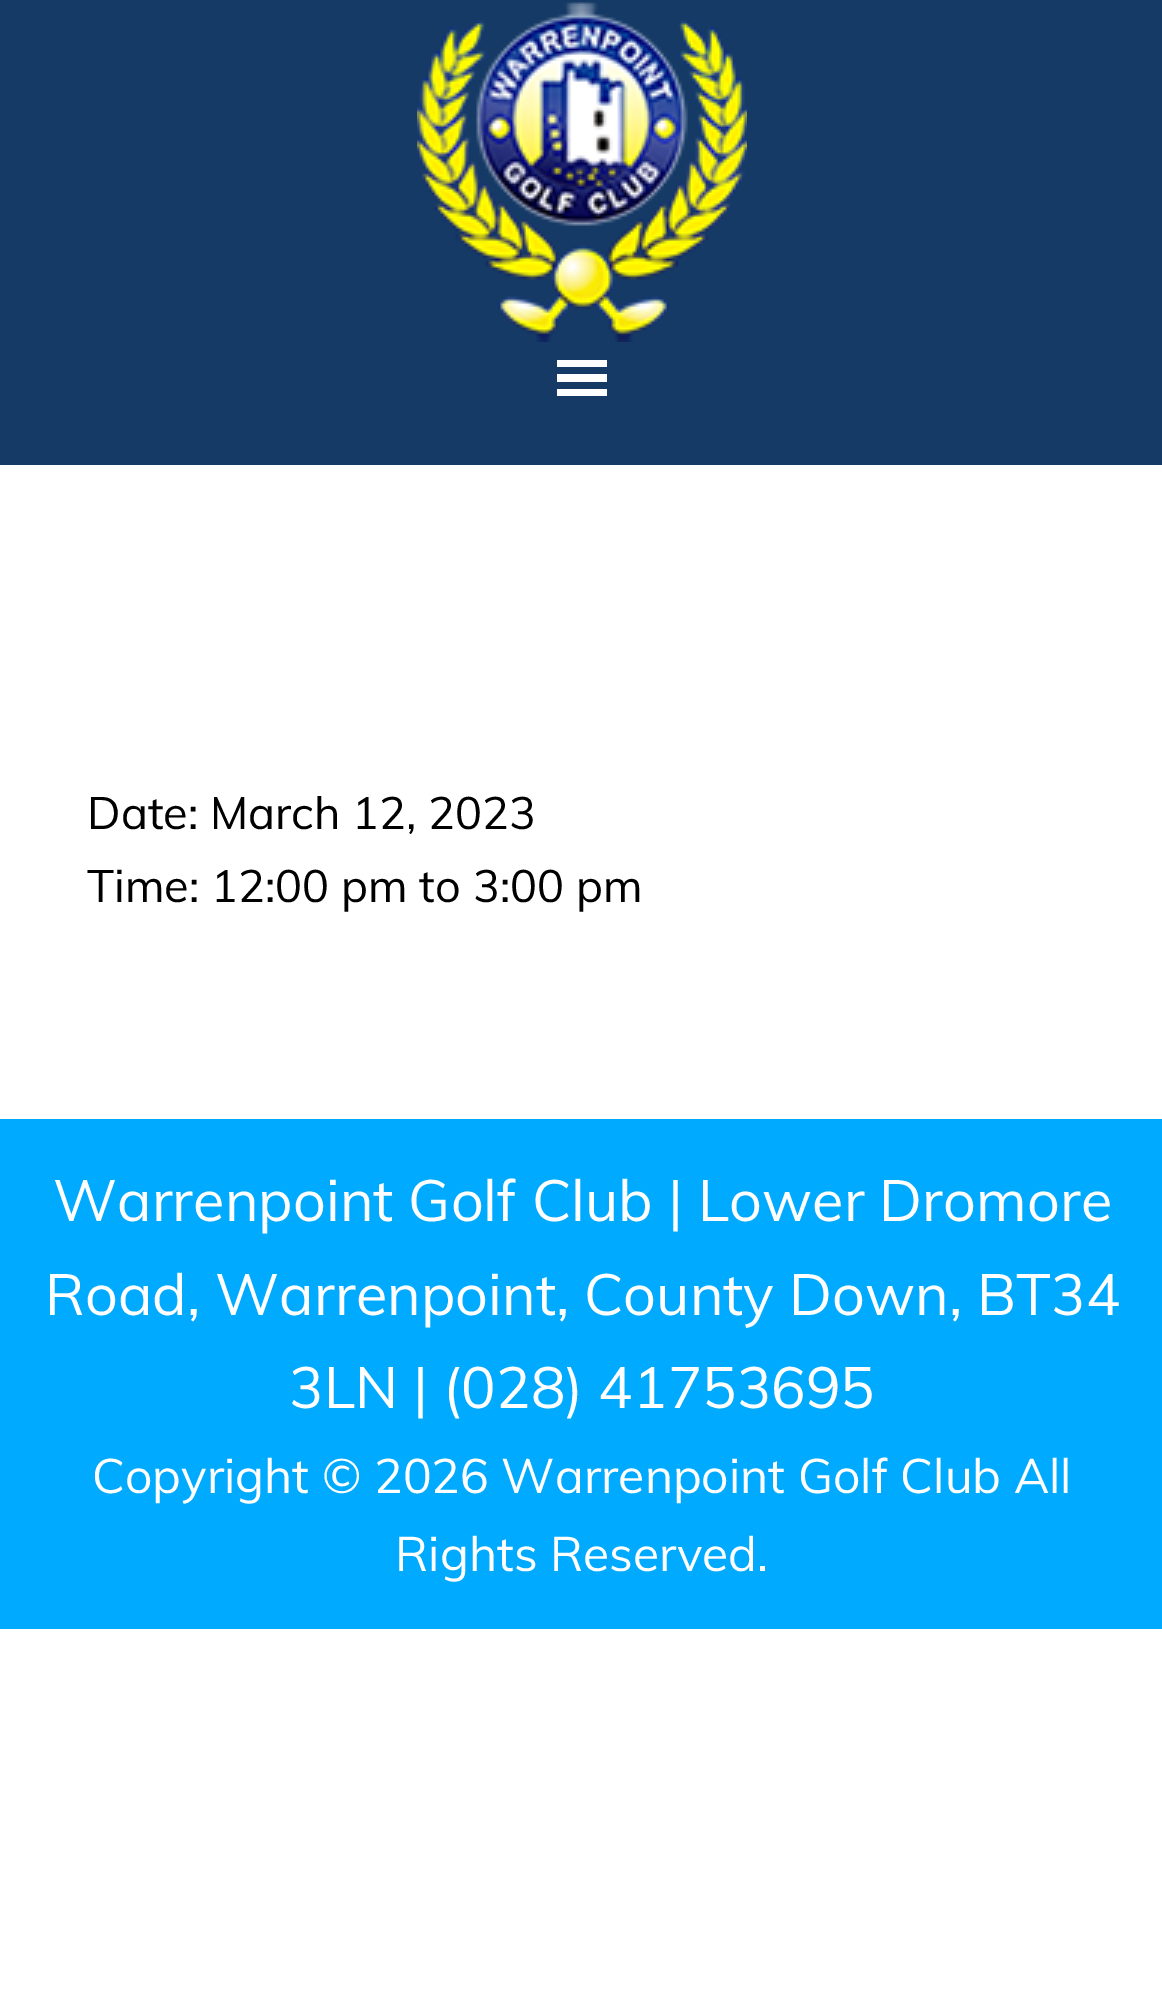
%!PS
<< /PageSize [1162 2007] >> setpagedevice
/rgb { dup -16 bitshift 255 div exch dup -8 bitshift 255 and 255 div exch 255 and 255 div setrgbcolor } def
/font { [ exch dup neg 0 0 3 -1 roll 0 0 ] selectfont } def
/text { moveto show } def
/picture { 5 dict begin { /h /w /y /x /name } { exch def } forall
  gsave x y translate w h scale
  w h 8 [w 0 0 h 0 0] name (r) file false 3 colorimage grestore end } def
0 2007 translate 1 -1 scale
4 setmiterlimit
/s1 { /Muli-Regular 45 font 16#000000 rgb } def
/s2 { /Muli-Regular 57.6 font 16#FFFFFF rgb } def
/s3 { /Muli-Regular 48 font 16#FFFFFF rgb } def
16#FFFFFF rgb
0 0 1162 2007 rectfill
16#163A66 rgb
0 0 1162 465 rectfill
(pic1.raw) 417 2 330 340 picture
16#FFFFFF rgb
557 396 moveto 607 396 lineto 607 389 lineto 557 389 lineto closepath 557 360 moveto 557 367 lineto 607 367 lineto 607 360 lineto closepath 557 382 moveto 607 382 lineto 607 374 lineto 557 374 lineto closepath fill
s1
(Date: March 12, 2023) 87 829 text
(Time: 12:00 pm to 3:00 pm) 87 902 text
16#00AAFF rgb
0 1119 1162 510 rectfill
s2
(Warrenpoint Golf Club | Lower Dromore) 53 1221 text
(Road, Warrenpoint, County Down, BT34) 45 1315 text
(3LN | \(028\) 41753695) 289 1408 text
s3
(Copyright © 2026 Warrenpoint Golf Club All) 92 1493 text
(Rights Reserved.) 395 1571 text
showpage
